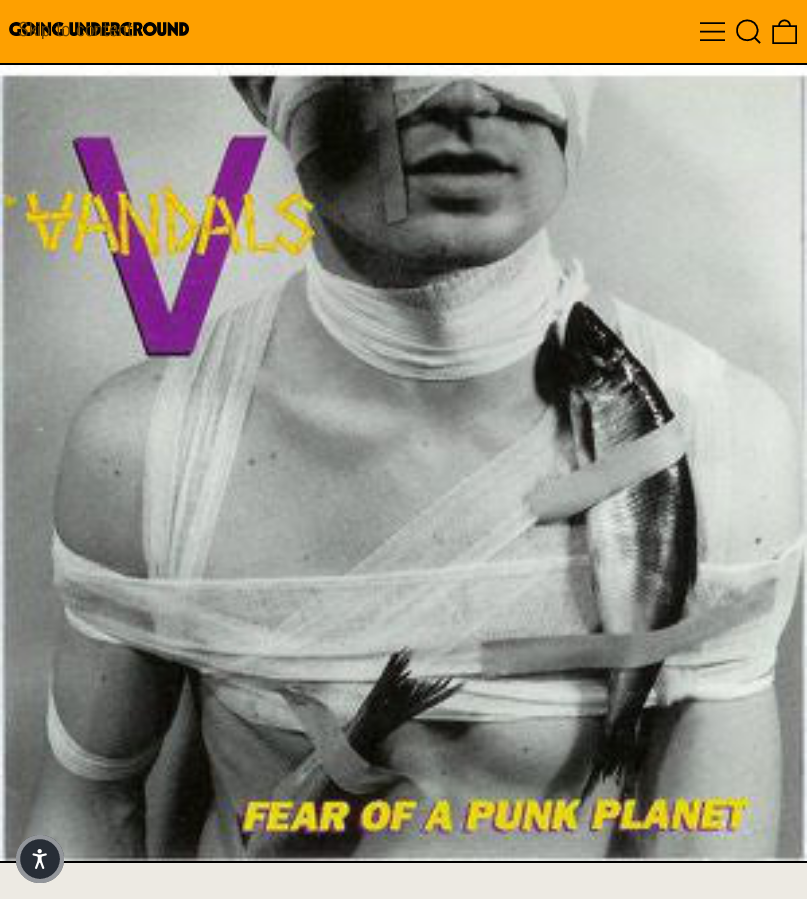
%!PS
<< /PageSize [807 899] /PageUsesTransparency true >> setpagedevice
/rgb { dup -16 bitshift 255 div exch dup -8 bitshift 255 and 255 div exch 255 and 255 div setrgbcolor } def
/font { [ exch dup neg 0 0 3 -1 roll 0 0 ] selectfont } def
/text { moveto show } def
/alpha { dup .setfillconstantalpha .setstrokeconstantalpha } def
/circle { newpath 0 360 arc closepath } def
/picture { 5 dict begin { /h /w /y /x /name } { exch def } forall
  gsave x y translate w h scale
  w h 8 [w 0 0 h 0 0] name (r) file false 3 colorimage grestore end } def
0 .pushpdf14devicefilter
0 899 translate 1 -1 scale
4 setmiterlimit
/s1 { /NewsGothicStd-Regular 18 font 16#694200 rgb } def
16#EDEAE3 rgb
0 0 807 899 rectfill
16#FEA000 rgb
0 0 807 63 rectfill
16#000000 rgb
0 63 807 2 rectfill
(pic1.raw) 9 21 180 15 picture
1.5 setlinewidth
700 23 moveto 725 23 lineto 700 31.5 moveto 725 31.5 lineto 700 40 moveto 725 40 lineto 737 30.5 moveto 737 43.5 757.5 43.5 757.5 30.5 curveto 757.5 17 737 17 737 30.5 curveto closepath 754.5 37.5 moveto 760 43 lineto stroke
773 26 moveto 796 26 lineto 796 43 lineto 773 43 lineto closepath 790 26 moveto 790 18.5 779 18.5 779 26 curveto stroke
s1
(Skip to content) 18 36 text
16#000000 rgb
0 861 807 2 rectfill
(pic2.raw) 0 65 807 796 picture
16#272D36 rgb
40 859 24 circle fill
0.5 alpha
16#FFFFFF rgb
4 setlinewidth
40 859 22 circle stroke
1 alpha
(pic3.raw) 32 849 15 20 picture
.poppdf14devicefilter showpage
